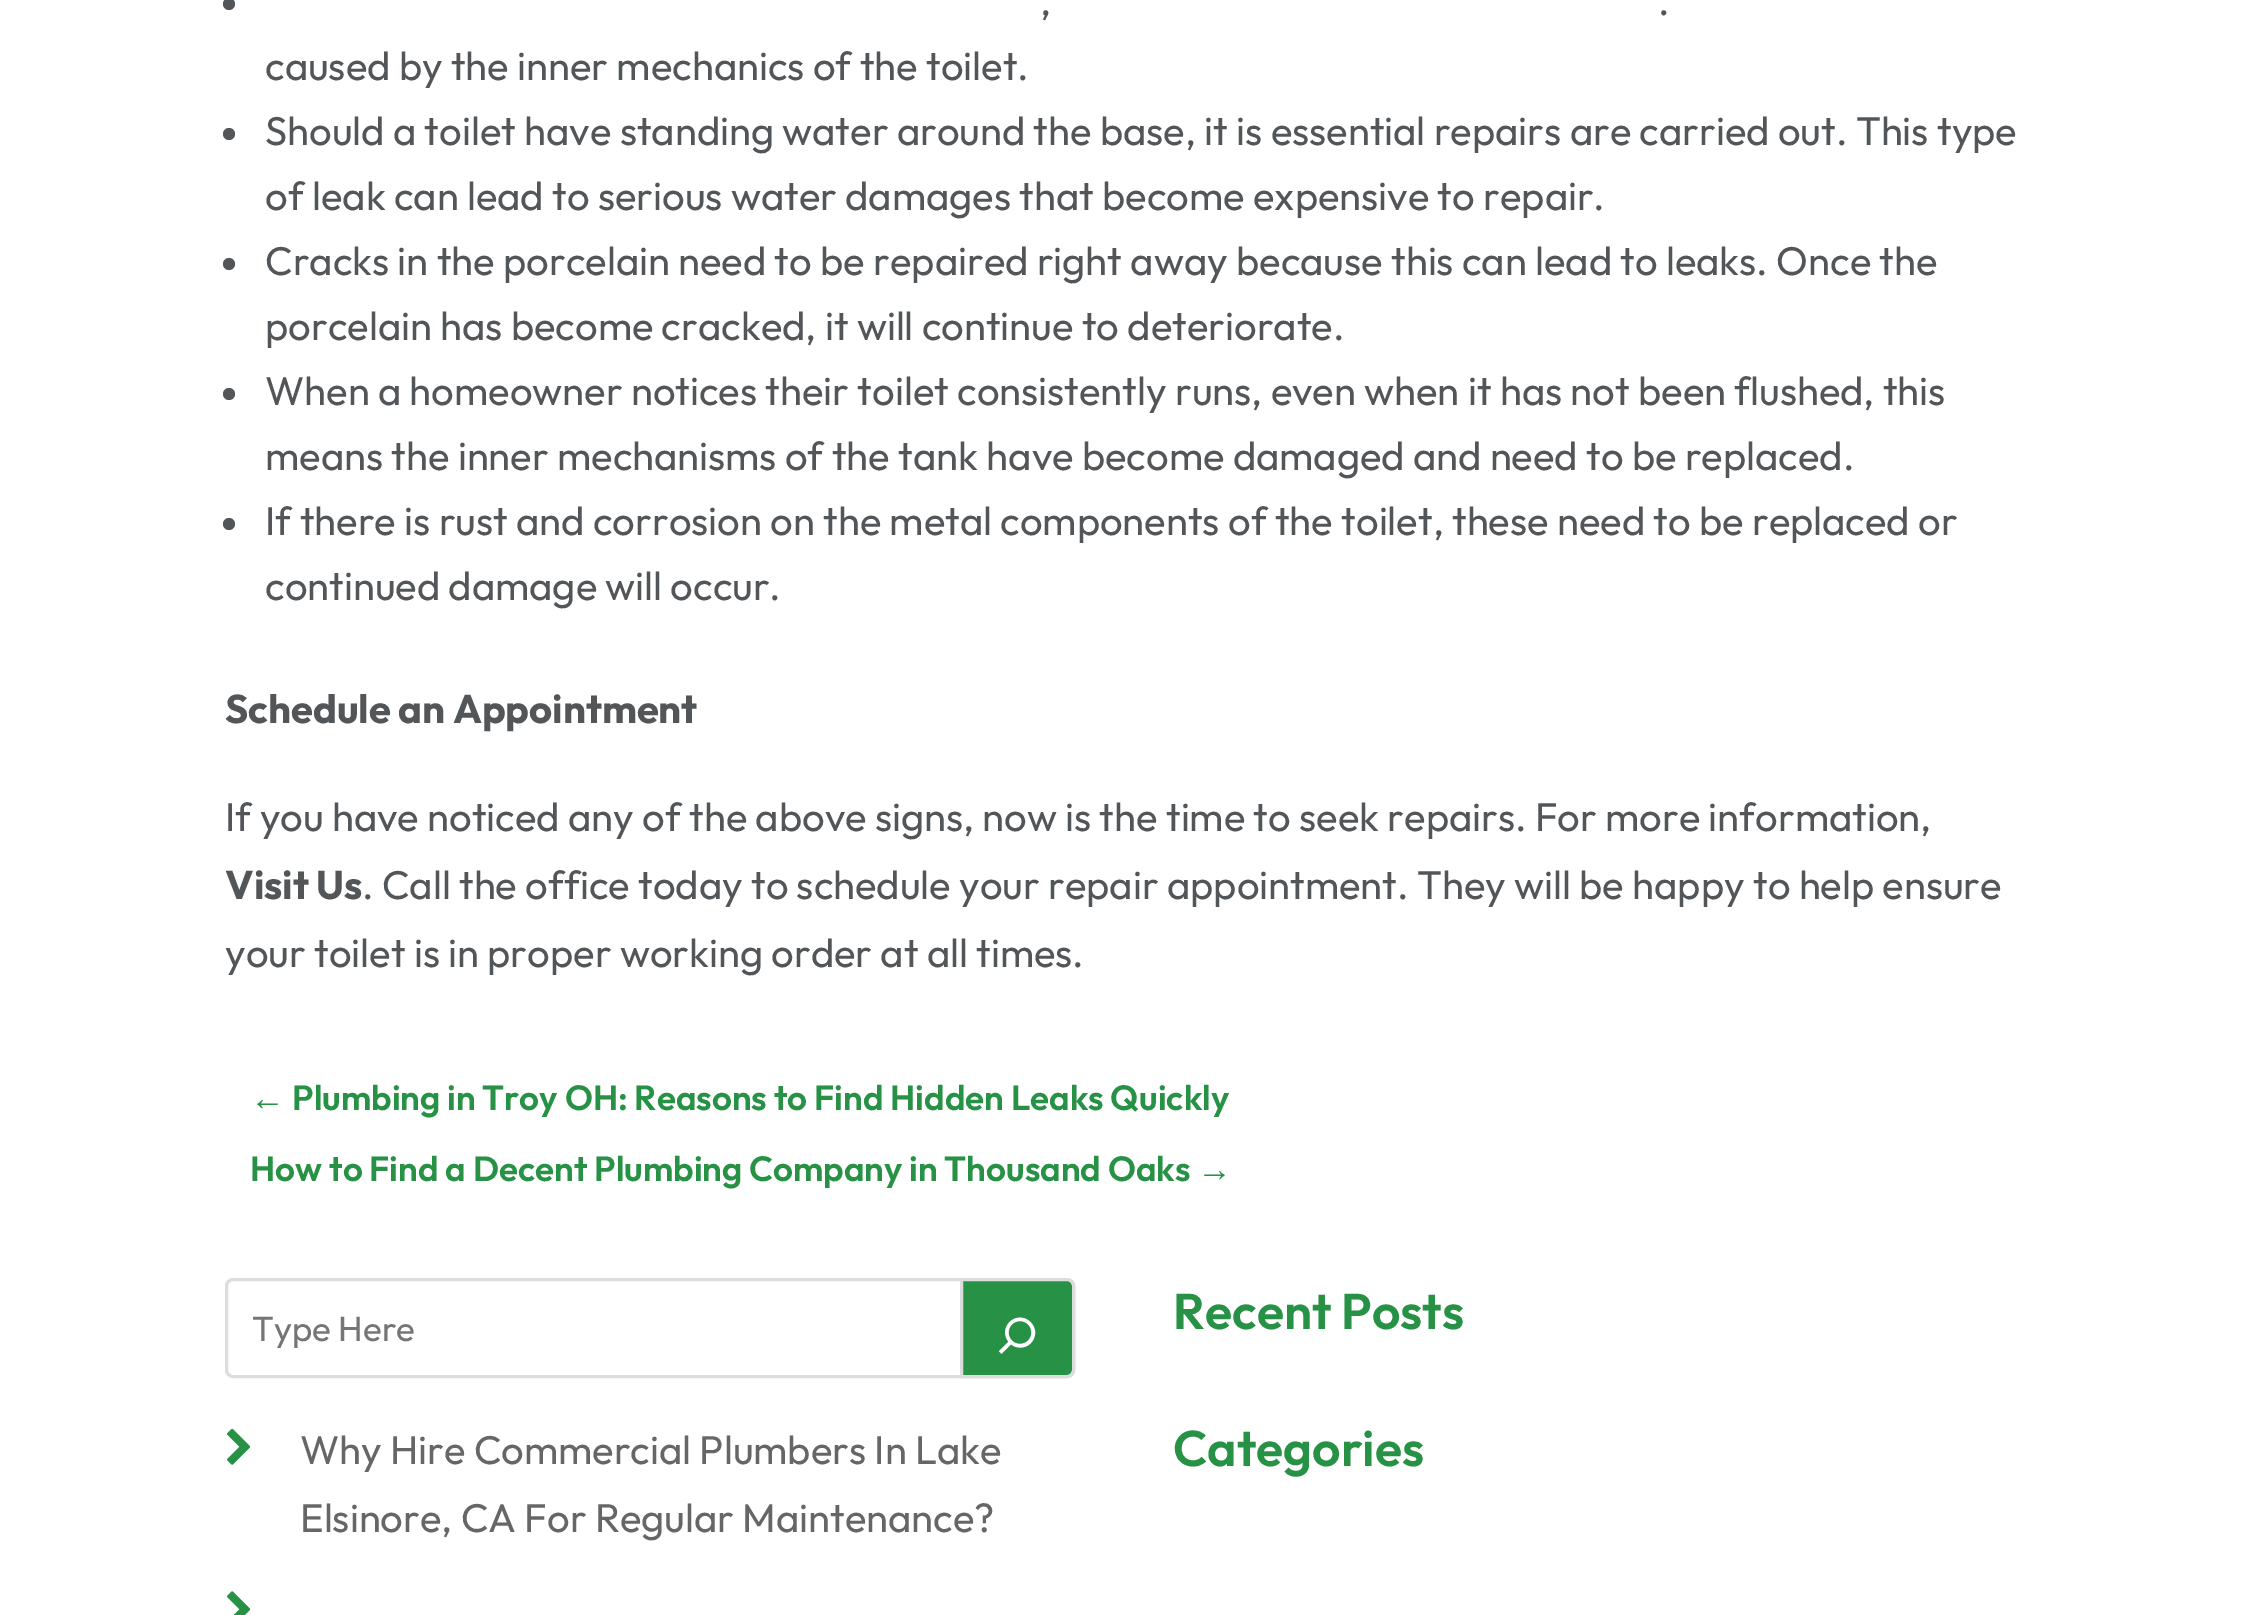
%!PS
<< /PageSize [2247 1615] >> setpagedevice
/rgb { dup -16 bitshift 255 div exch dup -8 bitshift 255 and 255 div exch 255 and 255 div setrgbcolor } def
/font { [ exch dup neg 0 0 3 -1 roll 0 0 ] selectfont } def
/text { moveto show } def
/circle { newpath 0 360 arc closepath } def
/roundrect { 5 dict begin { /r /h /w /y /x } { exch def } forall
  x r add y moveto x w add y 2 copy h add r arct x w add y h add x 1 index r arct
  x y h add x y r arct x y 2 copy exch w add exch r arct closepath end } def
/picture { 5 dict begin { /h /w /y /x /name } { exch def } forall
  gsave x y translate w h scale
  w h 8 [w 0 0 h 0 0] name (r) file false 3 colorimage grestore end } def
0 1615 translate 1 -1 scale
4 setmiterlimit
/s1 { /Outfit-Thin 40 font 16#535659 rgb } def
/s2 { /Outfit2-Thin 40 font 16#535659 rgb } def
/s3 { /LiberationSans-Bold 35 font 16#279245 rgb } def
/s4 { /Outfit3-Thin 35 font 16#279245 rgb } def
/s5 { /Outfit-Thin 35 font 16#757575 rgb } def
/s6 { /Outfit3-Thin 50 font 16#279245 rgb } def
/s7 { /Outfit-Thin 40 font 16#666666 rgb } def
16#FFFFFF rgb
0 0 2247 1615 rectfill
16#535659 rgb
229 4 6 circle fill
s1
(,) 1040 15 text
(.) 1658 15 text
(caused by the inner mechanics of the toilet.) 265 80 text
229 134 6 circle fill
(Should a toilet have standing water around the base, it is essential repairs are carried out. This type) 265 145 text
(of leak can lead to serious water damages that become expensive to repair.) 265 210 text
229 264 6 circle fill
(Cracks in the porcelain need to be repaired right away because this can lead to leaks. Once the) 265 275 text
(porcelain has become cracked, it will continue to deteriorate.) 265 340 text
229 394 6 circle fill
(When a homeowner notices their toilet consistently runs, even when it has not been flushed, this) 265 405 text
(means the inner mechanisms of the tank have become damaged and need to be replaced.) 265 470 text
229 524 6 circle fill
(If there is rust and corrosion on the metal components of the toilet, these need to be replaced or) 265 535 text
(continued damage will occur.) 265 600 text
s2
(Schedule an Appointment) 225 723 text
s1
(If you have noticed any of the above signs, now is the time to seek repairs. For more information,) 225 831 text
s2
(Visit Us) 225 899 text
s1
(. Call the office today to schedule your repair appointment. They will be happy to help ensure) 362 899 text
(your toilet is in proper working order at all times.) 225 967 text
s3
(←) 250 1110 text
s4
(Plumbing in Troy OH: Reasons to Find Hidden Leaks Quickly) 292 1110 text
(How to Find a Decent Plumbing Company in Thousand Oaks) 250 1181 text
s3
(→) 1197 1181 text
16#DDDDDD rgb
3 setlinewidth
226.5 1279.5 847 97 6.5 roundrect stroke
gsave
253 1305 760 45 rectclip
s5
(Type Here) 252 1341 text
grestore
16#279245 rgb
961.5 1279.5 moveto 1067 1279.5 lineto 1070.5 1279.5 1073.5 1282.5 1073.5 1286 curveto 1073.5 1370 lineto 1073.5 1373.5 1070.5 1376.5 1067 1376.5 curveto 961.5 1376.5 lineto closepath gsave fill grestore
16#DDDDDD rgb
stroke
(pic1.raw) 998 1317 38 37 picture
s6
(Recent Posts) 1173 1329 text
(pic2.raw) 227 1428 24 37 picture
s7
(Why Hire Commercial Plumbers In Lake) 300 1464 text
(Elsinore, CA For Regular Maintenance?) 300 1532 text
(pic3.raw) 227 1591 24 24 picture
s6
(Categories) 1173 1466 text
showpage
